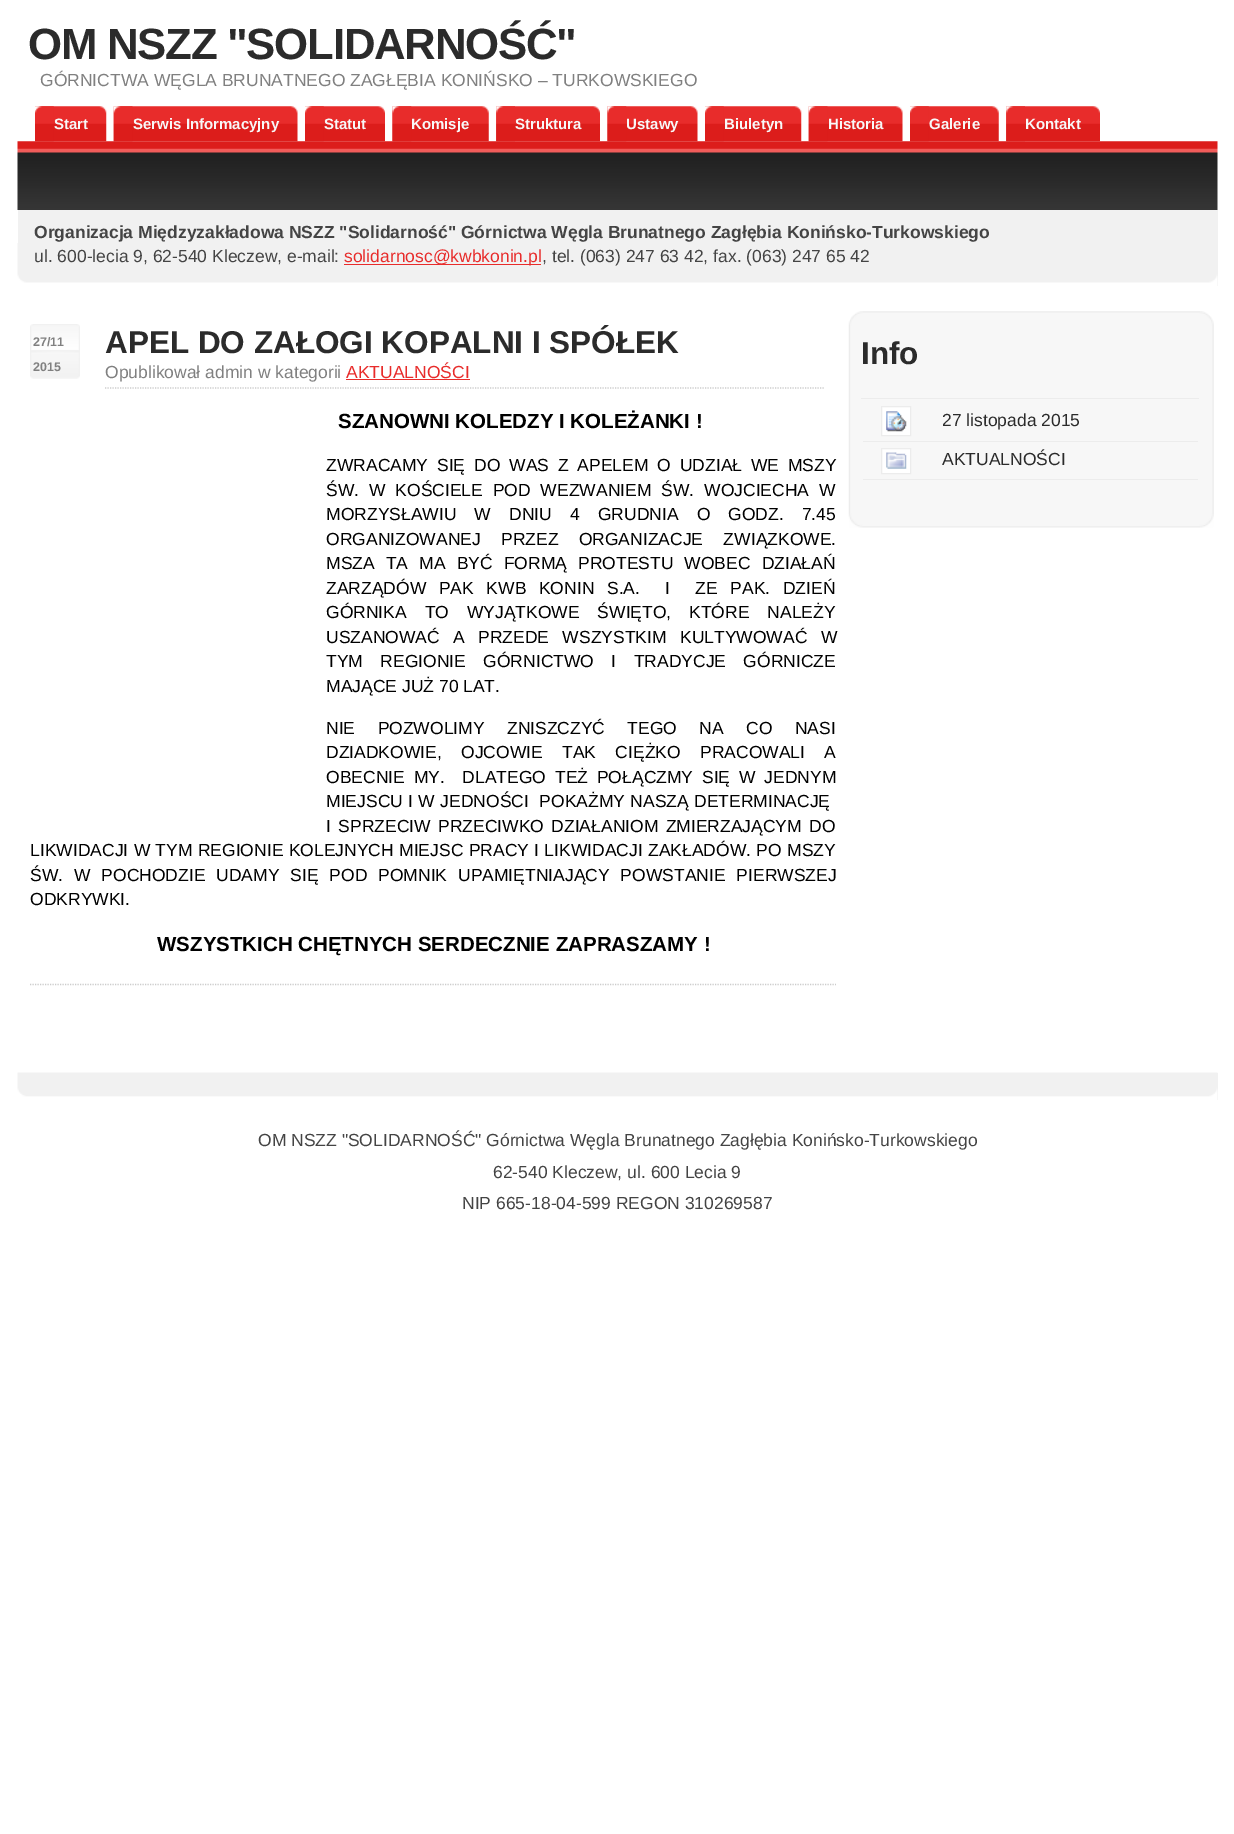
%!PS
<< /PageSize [1234 1834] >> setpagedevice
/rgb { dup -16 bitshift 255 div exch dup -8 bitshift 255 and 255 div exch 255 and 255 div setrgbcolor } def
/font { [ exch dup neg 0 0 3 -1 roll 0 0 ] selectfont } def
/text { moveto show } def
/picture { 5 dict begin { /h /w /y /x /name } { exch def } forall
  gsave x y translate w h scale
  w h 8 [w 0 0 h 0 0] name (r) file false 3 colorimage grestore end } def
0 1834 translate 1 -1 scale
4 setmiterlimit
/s1 { /LiberationSans-Regular 17.5 font 16#808080 rgb } def
/s2 { /LiberationSans-Bold 15 font 16#F8F8F8 rgb } def
/s3 { /LiberationSans-Bold 17.5 font 16#444444 rgb } def
/s4 { /LiberationSans-Regular 17.5 font 16#444444 rgb } def
/s5 { /LiberationSans-Regular 17.5 font 16#E82C2B rgb } def
/s6 { /LiberationSans-Bold 12.5 font 16#808080 rgb } def
/s7 { /LiberationSans-Bold 31.5 font 16#2B2B2B rgb } def
/s8 { /LiberationSans-Bold 20.5 font 16#000000 rgb } def
/s9 { /LiberationSans-Regular 17.5 font 16#000000 rgb } def
/s10 { /LiberationSans-Regular 17.5 font 16#2B2B2B rgb } def
16#FFFFFF rgb
0 0 1234 1834 rectfill
/LiberationSans-Bold 43.75 font
16#2B2B2B rgb
28 59 moveto -1.25 0 (OM NSZZ "SOLIDARNOŚĆ") ashow
s1
(GÓRNICTWA WĘGLA BRUNATNEGO ZAGŁĘBIA KONIŃSKO – TURKOWSKIEGO) 40 86 text
(pic17.raw) 17 141 1201 69 picture
(pic1.raw) 35 106 72 36 picture
(pic2.raw) 35 106 19 36 picture
s2
(Start) 54 129 text
(pic3.raw) 113 106 185 36 picture
(pic4.raw) 113 106 20 36 picture
(Serwis Informacyjny) 133 129 text
(pic5.raw) 305 106 80 36 picture
(pic6.raw) 305 106 19 36 picture
(Statut) 324 129 text
(pic7.raw) 392 106 97 36 picture
(pic8.raw) 392 106 20 36 picture
(Komisje) 411 129 text
(pic9.raw) 496 106 104 36 picture
(pic10.raw) 496 106 19 36 picture
(Struktura) 515 129 text
(pic11.raw) 607 106 91 36 picture
(pic12.raw) 607 106 20 36 picture
(Ustawy) 626 129 text
(pic13.raw) 705 106 97 36 picture
(pic2.raw) 705 106 19 36 picture
(Biuletyn) 724 129 text
(pic14.raw) 808 106 95 36 picture
(pic4.raw) 808 106 20 36 picture
(Historia) 828 129 text
(pic15.raw) 910 106 89 36 picture
(pic6.raw) 910 106 19 36 picture
(Galerie) 929 129 text
(pic16.raw) 1006 106 94 36 picture
(pic10.raw) 1006 106 19 36 picture
(Kontakt) 1025 129 text
16#F1F1F1 rgb
18 210 1200 76 rectfill
(pic18.raw) 17 243 1201 43 picture
s3
(Organizacja Międzyzakładowa NSZZ "Solidarność" Górnictwa Węgla Brunatnego Zagłębia Konińsko-Turkowskiego) 34 238 text
s4
(ul. 600-lecia 9, 62-540 Kleczew, e-mail:) 34 262 text
16#E82C2B rgb
344 264 197 1 rectfill
(solidarnosc@kwbkonin.pl) 344 262 text
s4
(, tel. \(063\) 247 63 42, fax. \(063\) 247 65 42) 542 262 text
16#CCCCCC rgb
1.2 setlinewidth
[1.25 1.25] 0 setdash
30 984.5 moveto 836 984.5 lineto stroke
(pic19.raw) 30 324 50 55 picture
s6
(27/11) 33 346 text
(2015) 33 371 text
s7
(APEL DO ZAŁOGI KOPALNI I SPÓŁEK) 105 353 text
16#CCCCCC rgb
105 388 moveto 824 388 lineto stroke
s1
(Opublikował admin w kategorii) 105 378 text
s5
(AKTUALNOŚCI) 346 378 text
346 379 124 1 rectfill
s8
(SZANOWNI KOLEDZY I KOLEŻANKI !) 338 428 text
/LiberationSans-Regular 17.5 font
326 471 moveto 4 0 32 (ZWRACAMY SIĘ DO WAS Z APELEM O UDZIAŁ WE MSZY) widthshow
326 496 moveto 5 0 32 (ŚW. W KOŚCIELE POD WEZWANIEM ŚW. WOJCIECHA W) widthshow
326 520 moveto 13.25 0 32 (MORZYSŁAWIU W DNIU 4 GRUDNIA O GODZ. 7.45) widthshow
326 545 moveto 15.5 0 32 (ORGANIZOWANEJ PRZEZ ORGANIZACJE ZWIĄZKOWE.) widthshow
326 569 moveto 6.25 0 32 (MSZA TA MA BYĆ FORMĄ PROTESTU WOBEC DZIAŁAŃ) widthshow
326 594 moveto 7.75 0 32 (ZARZĄDÓW PAK KWB KONIN S.A.  I  ZE PAK. DZIEŃ) widthshow
326 618 moveto 13 0 32 (GÓRNIKA TO WYJĄTKOWE ŚWIĘTO, KTÓRE NALEŻY) widthshow
326 643 moveto 8.5 0 32 (USZANOWAĆ A PRZEDE WSZYSTKIM KULTYWOWAĆ W) widthshow
326 667 moveto 12.5 0 32 (TYM REGIONIE GÓRNICTWO I TRADYCJE GÓRNICZE) widthshow
(MAJĄCE JUŻ 70 LAT.) 326 692 text
326 734 moveto 17.5 0 32 (NIE POZWOLIMY ZNISZCZYĆ TEGO NA CO NASI) widthshow
326 758 moveto 14.5 0 32 (DZIADKOWIE, OJCOWIE TAK CIĘŻKO PRACOWALI A) widthshow
326 783 moveto 4 0 32 (OBECNIE MY.  DLATEGO TEŻ POŁĄCZMY SIĘ W JEDNYM) widthshow
326 807 moveto 0.5 0 32 (MIEJSCU I W JEDNOŚCI  POKAŻMY NASZĄ DETERMINACJĘ) widthshow
326 832 moveto 2.5 0 32 (I SPRZECIW PRZECIWKO DZIAŁANIOM ZMIERZAJĄCYM DO) widthshow
30 856 moveto 0.5 0 32 (LIKWIDACJI W TYM REGIONIE KOLEJNYCH MIEJSC PRACY I LIKWIDACJI ZAKŁADÓW. PO MSZY) widthshow
30 881 moveto 6 0 32 (ŚW. W POCHODZIE UDAMY SIĘ POD POMNIK UPAMIĘTNIAJĄCY POWSTANIE PIERWSZEJ) widthshow
(ODKRYWKI.) 30 905 text
s8
(WSZYSTKICH CHĘTNYCH SERDECZNIE ZAPRASZAMY !) 157 951 text
(pic20.raw) 848 311 366 24 picture
(pic21.raw) 848 335 366 193 picture
s7
(Info) 861 364 text
16#ECECEC rgb
861 398 338 1 rectfill
863 441 335 1 rectfill
16#FFFFFF rgb
881.5 406.5 moveto 910.5 406.5 lineto 910.5 435.5 lineto 881.5 435.5 lineto closepath gsave fill grestore
16#ECECEC rgb
1 setlinewidth
[] 0 setdash
stroke
(pic22.raw) 886 411 21 21 picture
s10
(27 listopada 2015) 942 426 text
16#ECECEC rgb
863 479 335 1 rectfill
16#FFFFFF rgb
881.5 448.5 moveto 910.5 448.5 lineto 910.5 473.5 lineto 881.5 473.5 lineto closepath gsave fill grestore
16#ECECEC rgb
stroke
s10
(AKTUALNOŚCI) 942 465 text
(pic23.raw) 886 452 21 17 picture
16#F1F1F1 rgb
1217 1073 1 27 rectfill
(pic24.raw) 17 1072 1201 28 picture
s4
(OM NSZZ "SOLIDARNOŚĆ" Górnictwa Węgla Brunatnego Zagłębia Konińsko-Turkowskiego) 258 1146 text
(62-540 Kleczew, ul. 600 Lecia 9) 493 1178 text
(NIP 665-18-04-599 REGON 310269587) 462 1209 text
showpage
